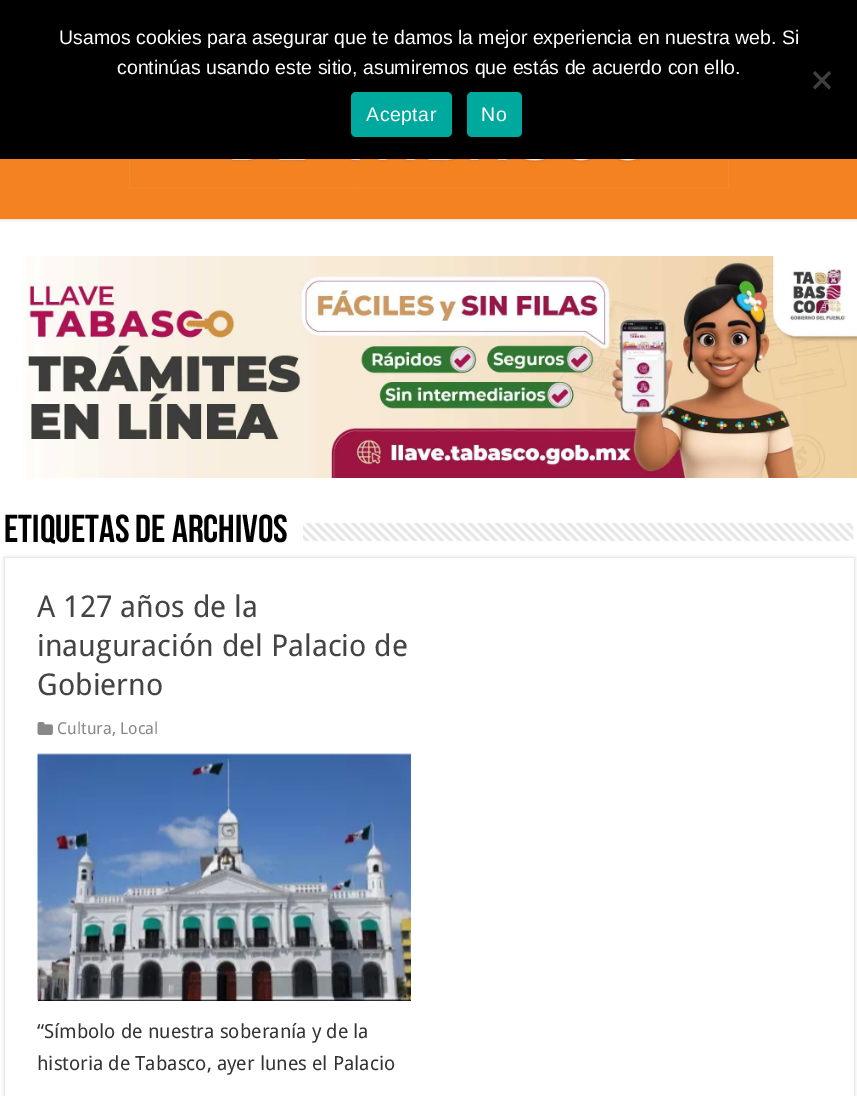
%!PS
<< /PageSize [857 1096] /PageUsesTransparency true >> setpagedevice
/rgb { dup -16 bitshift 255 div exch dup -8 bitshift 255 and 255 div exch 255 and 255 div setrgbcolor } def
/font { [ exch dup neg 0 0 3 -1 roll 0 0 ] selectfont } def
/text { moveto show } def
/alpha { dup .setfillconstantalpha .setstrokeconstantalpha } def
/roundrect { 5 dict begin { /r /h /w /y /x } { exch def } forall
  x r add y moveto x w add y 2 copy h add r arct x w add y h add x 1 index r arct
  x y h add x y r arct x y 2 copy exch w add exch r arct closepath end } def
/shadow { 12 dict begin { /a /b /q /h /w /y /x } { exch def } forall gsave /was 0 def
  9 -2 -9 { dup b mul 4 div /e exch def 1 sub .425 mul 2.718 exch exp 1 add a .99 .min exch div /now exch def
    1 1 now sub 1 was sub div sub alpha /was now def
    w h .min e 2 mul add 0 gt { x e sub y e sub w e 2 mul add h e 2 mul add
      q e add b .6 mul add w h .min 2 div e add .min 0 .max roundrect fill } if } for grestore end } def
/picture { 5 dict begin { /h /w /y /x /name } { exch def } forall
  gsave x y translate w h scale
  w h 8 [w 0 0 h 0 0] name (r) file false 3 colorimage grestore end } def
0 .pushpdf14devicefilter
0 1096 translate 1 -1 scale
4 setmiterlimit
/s1 { /LiberationSans-Regular 19.5 font 16#FFFFFF rgb } def
/s2 { /BebasNeue-Bold 39 font 16#000000 rgb } def
/s3 { /DroidSans-Regular 30 font 16#444444 rgb } def
/s4 { /DroidSans-Regular 16.5 font 16#888888 rgb } def
/s5 { /DroidSans-Regular 19.5 font 16#333333 rgb } def
16#FFFFFF rgb
0 0 857 1096 rectfill
16#CACACA rgb
0 -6 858 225 0 2 1 shadow
16#000000 rgb
0 0 857 159 rectfill
s1
(Usamos cookies para asegurar que te damos la mejor experiencia en nuestra web. Si) 59 44 text
(continúas usando este sitio, asumiremos que estás de acuerdo con ello.) 117 74 text
16#404040 rgb
829 71 moveto 831 73.5 lineto 815 89.5 lineto 813 87 lineto closepath fill
813 73.5 moveto 815 71 lineto 831 87 lineto 829 89.5 lineto closepath fill
16#00A99D rgb
351 92 101 45 5 roundrect fill
16#FFFFFF rgb
366 121 moveto 0.5 0 (Aceptar) ashow
16#00A99D rgb
467 92 55 45 5 roundrect fill
16#FFFFFF rgb
481 121 moveto 0.5 0 (No) ashow
16#F48221 rgb
0 159 857 60 rectfill
(pic1.raw) 129 159 600 30 picture
(pic2.raw) 22 256 835 222 picture
s2
(Etiquetas de Archivos) 4 542 text
(pic3.raw) 303 523 551 18 picture
16#CACACA rgb
5 558 849 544 0 2 1 shadow
16#FFFFFF rgb
5 558 849 538 rectfill
s3
(A 127 años de la) 37 617 text
(inauguración del Palacio de) 37 656 text
(Gobierno) 37 695 text
(pic4.raw) 37 722 16 13 picture
s4
(Cultura, Local) 57 734 text
16#000000 rgb
38 999 373 2 rectfill
(pic5.raw) 37 753 374 248 picture
s5
(“Símbolo de nuestra soberanía y de la) 37 1038 text
(historia de Tabasco, ayer lunes el Palacio) 37 1070 text
.poppdf14devicefilter showpage
